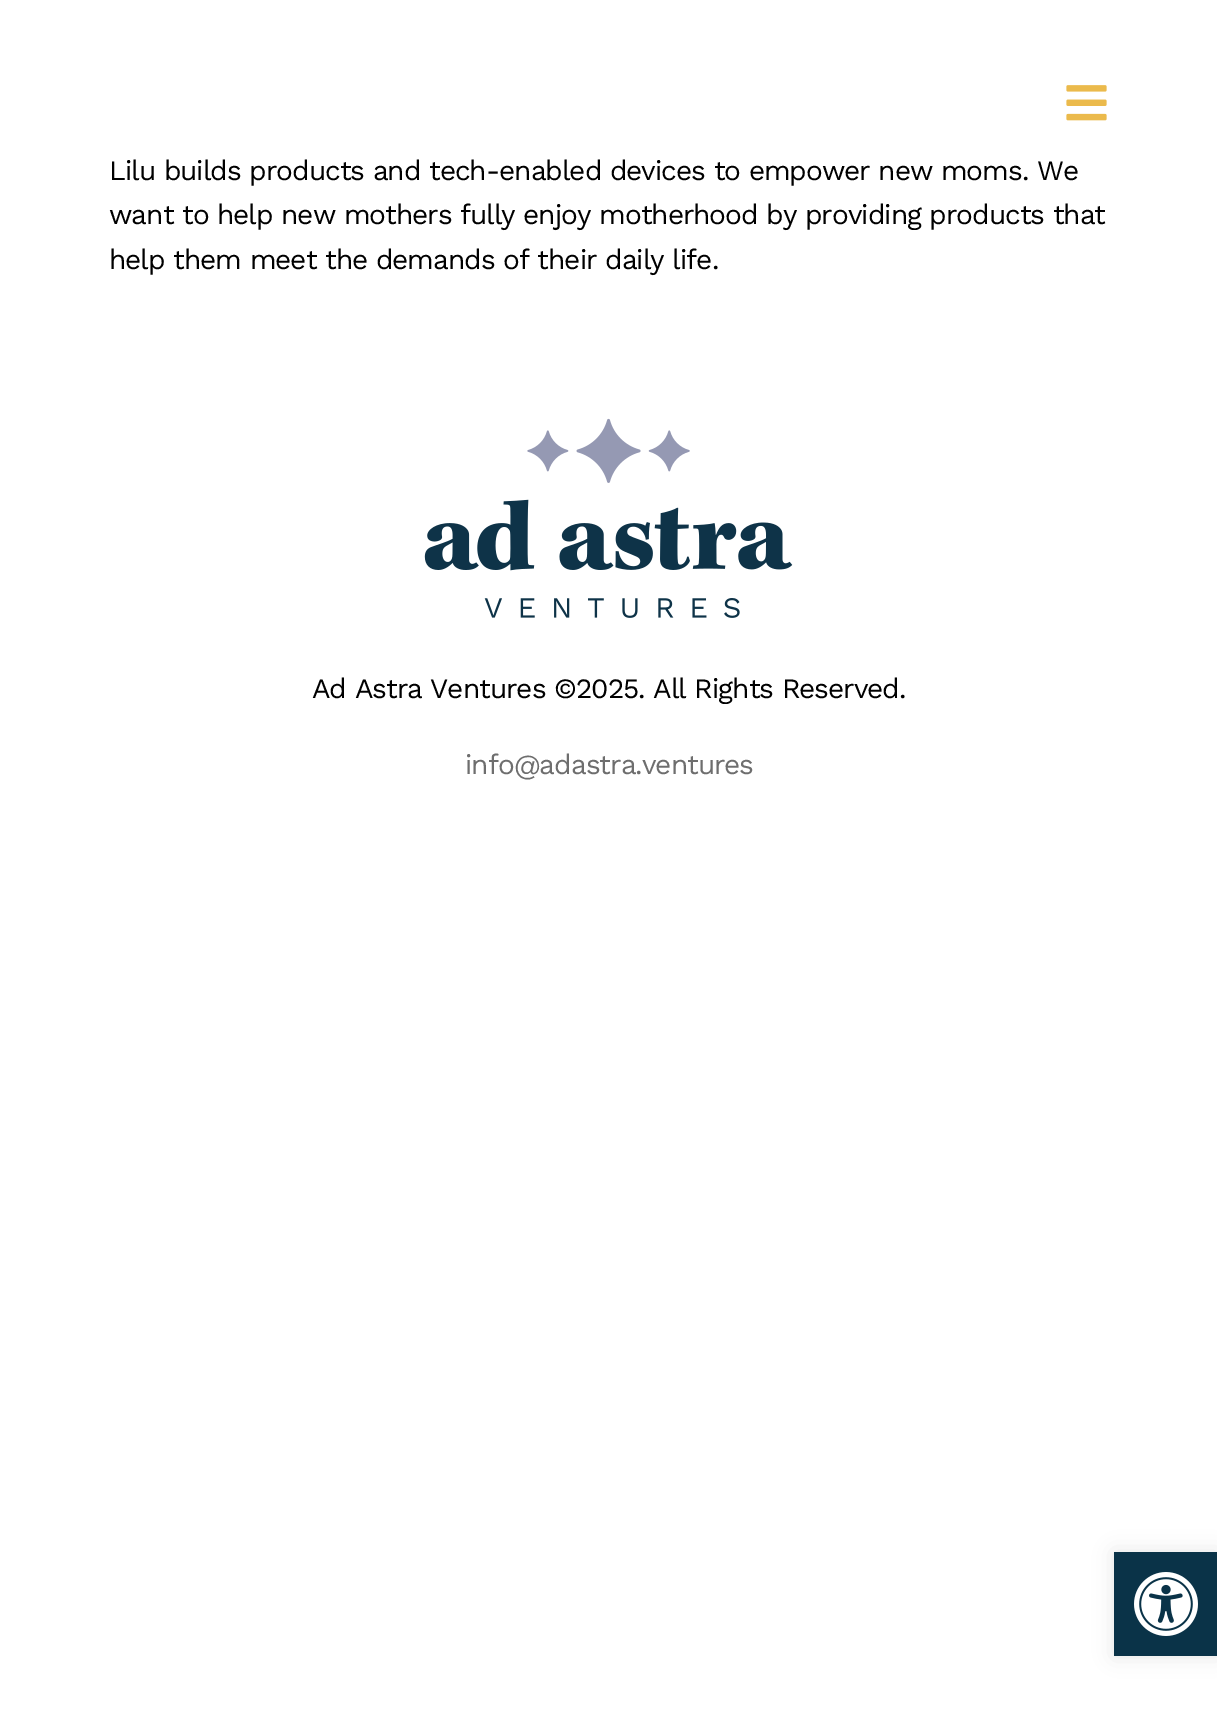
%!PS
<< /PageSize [1217 1724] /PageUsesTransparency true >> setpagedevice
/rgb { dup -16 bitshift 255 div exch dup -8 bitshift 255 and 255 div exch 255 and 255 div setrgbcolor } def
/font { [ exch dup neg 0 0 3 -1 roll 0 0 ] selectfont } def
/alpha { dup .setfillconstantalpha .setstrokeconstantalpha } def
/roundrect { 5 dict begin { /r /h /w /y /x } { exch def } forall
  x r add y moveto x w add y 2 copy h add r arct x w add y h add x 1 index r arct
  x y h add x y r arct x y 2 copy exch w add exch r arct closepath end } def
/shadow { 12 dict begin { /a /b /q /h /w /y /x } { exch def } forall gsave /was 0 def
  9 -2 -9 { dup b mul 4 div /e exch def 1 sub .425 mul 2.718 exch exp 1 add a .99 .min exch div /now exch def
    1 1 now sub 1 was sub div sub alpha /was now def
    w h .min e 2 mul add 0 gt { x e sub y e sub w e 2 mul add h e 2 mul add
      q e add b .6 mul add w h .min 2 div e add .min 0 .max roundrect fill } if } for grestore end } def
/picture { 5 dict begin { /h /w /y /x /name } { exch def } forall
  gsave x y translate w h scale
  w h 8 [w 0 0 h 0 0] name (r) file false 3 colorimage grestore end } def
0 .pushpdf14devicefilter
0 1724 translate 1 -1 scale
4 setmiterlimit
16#FFFFFF rgb
0 0 1217 1724 rectfill
(pic1.raw) 1066 85 41 36 picture
/WorkSans-Regular 28 font
16#000000 rgb
109 180 moveto -1 0 (Lilu builds products and tech-enabled devices to empower new moms. We) ashow
109 224 moveto -1 0 (want to help new mothers fully enjoy motherhood by providing products that) ashow
109 269 moveto -1 0 (help them meet the demands of their daily life.) ashow
(pic2.raw) 424 418 369 200 picture
312 698 moveto -1 0 (Ad Astra Ventures ©2025. All Rights Reserved.) ashow
16#6E6E6E rgb
465 774 moveto -1 0 (info@adastra.ventures) ashow
16#000000 rgb
1114 1552 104 104 0 10 0.1 shadow
16#0A3348 rgb
1114 1552 103 104 rectfill
(pic3.raw) 1134 1572 64 64 picture
.poppdf14devicefilter showpage
